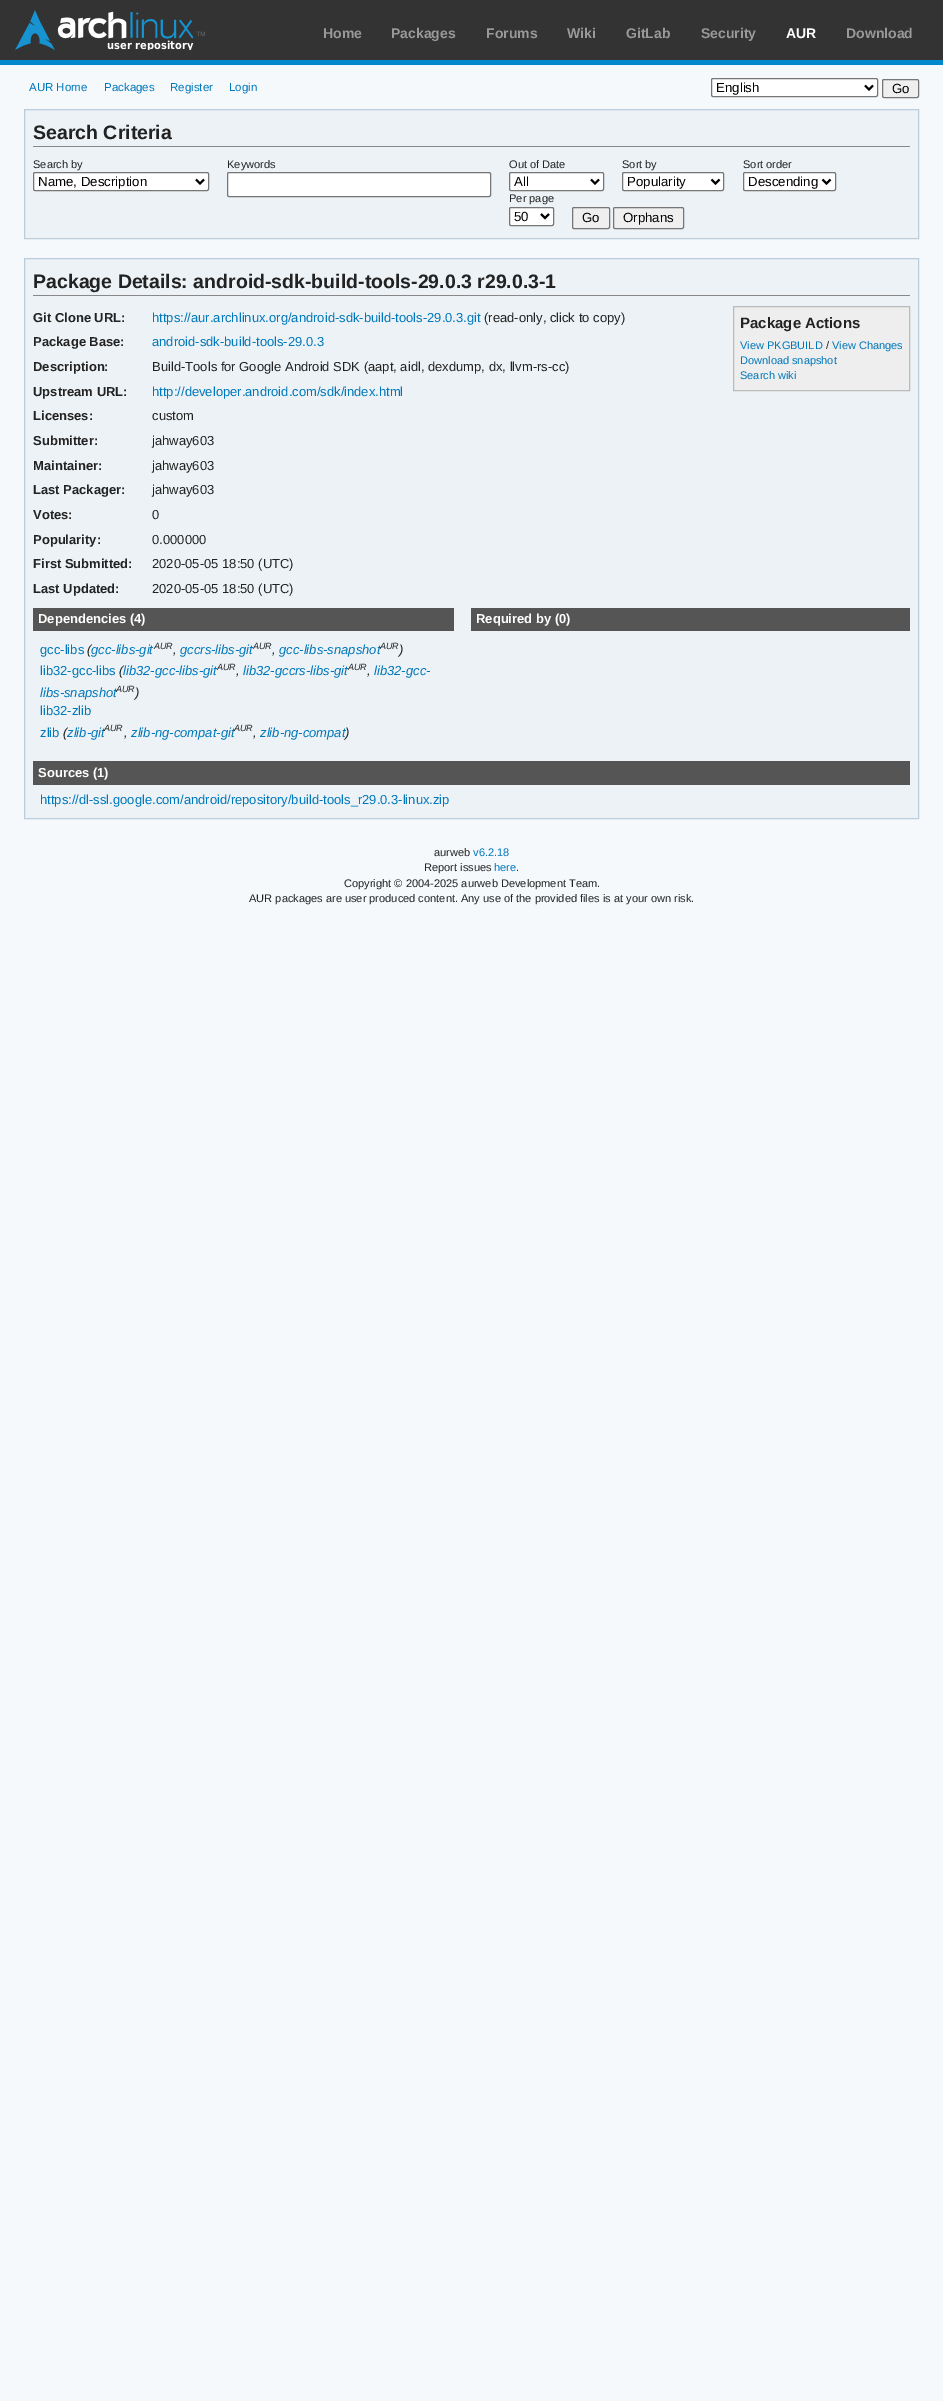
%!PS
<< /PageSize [943 2401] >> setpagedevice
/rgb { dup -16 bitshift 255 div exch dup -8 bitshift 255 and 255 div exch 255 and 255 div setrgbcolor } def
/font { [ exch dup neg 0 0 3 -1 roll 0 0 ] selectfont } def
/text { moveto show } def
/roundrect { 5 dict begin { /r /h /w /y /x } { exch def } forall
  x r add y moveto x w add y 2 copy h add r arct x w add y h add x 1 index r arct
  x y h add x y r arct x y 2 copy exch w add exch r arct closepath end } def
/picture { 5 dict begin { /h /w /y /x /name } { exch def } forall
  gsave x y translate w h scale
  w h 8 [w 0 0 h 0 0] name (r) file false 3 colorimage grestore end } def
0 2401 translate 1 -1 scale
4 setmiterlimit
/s1 { /LiberationSans-Bold 14 font 16#999999 rgb } def
/s2 { /LiberationSans-Bold 14 font 16#FFFFFF rgb } def
/s3 { /LiberationSans-Regular 11.5 font 16#0077BB rgb } def
/s4 { /LiberationSans-Regular 13.25 font 16#000000 rgb } def
/s5 { /LiberationSans-Bold 19.5 font 16#222222 rgb } def
/s6 { /LiberationSans-Regular 11.05 font 16#222222 rgb } def
/s7 { /LiberationSans-Bold 13 font 16#222222 rgb } def
/s8 { /LiberationSans-Regular 13 font 16#0077BB rgb } def
/s9 { /LiberationSans-Regular 13 font 16#222222 rgb } def
/s10 { /LiberationSans-Bold 15 font 16#222222 rgb } def
/s11 { /LiberationSans-Regular 11 font 16#0077BB rgb } def
/s12 { /LiberationSans-Regular 11 font 16#222222 rgb } def
/s13 { /LiberationSans-Bold 13 font 16#FFFFFF rgb } def
/s14 { /LiberationSans-Italic 13 font 16#222222 rgb } def
/s15 { /LiberationSans-Italic 13 font 16#0077BB rgb } def
/s16 { /LiberationSans-Italic 9 font 16#222222 rgb } def
/s17 { /LiberationSans-Regular 11.05 font 16#0077BB rgb } def
16#F6F9FC rgb
0 0 943 2401 rectfill
16#333333 rgb
0 0 943 60 rectfill
16#0088CC rgb
0 60 943 5 rectfill
(pic1.raw) 15 10 190 40 picture
s1
(Home) 323 38 text
(Packages) 391 38 text
(Forums) 486 38 text
(Wiki) 567 38 text
(GitLab) 626 38 text
(Security) 701 38 text
s2
(AUR) 786 38 text
s1
(Download) 846 38 text
s3
(AUR Home) 29 91 text
(Packages) 104 91 text
(Register) 170 91 text
(Login) 229 91 text
16#FFFFFF rgb
711.5 78.5 166 18 1.5 roundrect gsave fill grestore
16#767676 rgb
stroke
16#000000 rgb
2 setlinewidth
865 85.5 moveto 869 89.5 lineto 873 85.5 lineto stroke
s4
(English) 716 92 text
16#EFEFEF rgb
882.5 79.5 36 18 1.5 roundrect gsave fill grestore
16#767676 rgb
1 setlinewidth
stroke
s4
(Go) 892 93 text
16#ECF2F5 rgb
24.5 109.5 moveto 918.5 109.5 lineto 918.5 238.5 lineto 24.5 238.5 lineto closepath gsave fill grestore
16#BBCCDD rgb
stroke
16#888888 rgb
33 146 877 1 rectfill
s5
(Search Criteria) 33 139 text
s6
(Search by) 33 168 text
16#FFFFFF rgb
33.5 172.5 175 18 1.5 roundrect gsave fill grestore
16#767676 rgb
stroke
16#000000 rgb
2 setlinewidth
196 179.5 moveto 200 183.5 lineto 204 179.5 lineto stroke
s4
(Name, Description) 38 186 text
s6
(Keywords) 227 168 text
16#FFFFFF rgb
227.5 172.5 263 24 1.5 roundrect gsave fill grestore
16#767676 rgb
1 setlinewidth
stroke
s6
(Out of Date) 509 168 text
16#FFFFFF rgb
509.5 172.5 94 18 1.5 roundrect gsave fill grestore
16#767676 rgb
stroke
16#000000 rgb
2 setlinewidth
591 179.5 moveto 595 183.5 lineto 599 179.5 lineto stroke
s4
(All) 514 186 text
s6
(Sort by) 622 168 text
16#FFFFFF rgb
622.5 172.5 101 18 1.5 roundrect gsave fill grestore
16#767676 rgb
1 setlinewidth
stroke
16#000000 rgb
2 setlinewidth
711.5 179.5 moveto 715.5 183.5 lineto 719.5 179.5 lineto stroke
s4
(Popularity) 627 186 text
s6
(Sort order) 743 168 text
16#FFFFFF rgb
743.5 172.5 92 18 1.5 roundrect gsave fill grestore
16#767676 rgb
1 setlinewidth
stroke
16#000000 rgb
2 setlinewidth
822.5 179.5 moveto 826.5 183.5 lineto 830.5 179.5 lineto stroke
s4
(Descending) 748 186 text
s6
(Per page) 509 202 text
16#FFFFFF rgb
509.5 207.5 44 18 1.5 roundrect gsave fill grestore
16#767676 rgb
1 setlinewidth
stroke
16#000000 rgb
2 setlinewidth
541 214 moveto 545 218 lineto 549 214 lineto stroke
s4
(50) 514 221 text
16#EFEFEF rgb
572.5 207.5 37 21 1.5 roundrect gsave fill grestore
16#767676 rgb
1 setlinewidth
stroke
s4
(Go) 582 222 text
16#EFEFEF rgb
613.5 207.5 70 21 1.5 roundrect gsave fill grestore
16#767676 rgb
stroke
s4
(Orphans) 623 222 text
16#ECF2F5 rgb
24.5 258.5 moveto 918.5 258.5 lineto 918.5 818.5 lineto 24.5 818.5 lineto closepath gsave fill grestore
16#BBCCDD rgb
stroke
16#888888 rgb
33 295 877 1 rectfill
s5
(Package Details: android-sdk-build-tools-29.0.3 r29.0.3-1) 33 288 text
s7
(Git Clone URL:) 33 322 text
s8
(https://aur.archlinux.org/android-sdk-build-tools-29.0.3.git) 152 322 text
s9
(\(read-only, click to copy\)) 484 322 text
s7
(Package Base:) 33 346 text
s8
(android-sdk-build-tools-29.0.3) 152 346 text
s7
(Description:) 33 371 text
s9
(Build-Tools for Google Android SDK \(aapt, aidl, dexdump, dx, llvm-rs-cc\)) 152 371 text
s7
(Upstream URL:) 33 396 text
s8
(http://developer.android.com/sdk/index.html) 152 396 text
s7
(Licenses:) 33 420 text
s9
(custom) 152 420 text
s7
(Submitter:) 33 445 text
s9
(jahway603) 152 445 text
s7
(Maintainer:) 33 470 text
s9
(jahway603) 152 470 text
s7
(Last Packager:) 33 494 text
s9
(jahway603) 152 494 text
s7
(Votes:) 33 519 text
s9
(0) 152 519 text
s7
(Popularity:) 33 544 text
s9
(0.000000) 152 544 text
s7
(First Submitted:) 33 568 text
s9
(2020-05-05 18:50 \(UTC\)) 152 568 text
s7
(Last Updated:) 33 593 text
s9
(2020-05-05 18:50 \(UTC\)) 152 593 text
16#EEEEEE rgb
733.5 306.5 moveto 909.5 306.5 lineto 909.5 390.5 lineto 733.5 390.5 lineto closepath gsave fill grestore
16#BBBBBB rgb
stroke
s10
(Package Actions) 740 328 text
s11
(View PKGBUILD) 740 349 text
s12
(/) 826 349 text
s11
(View Changes) 832 349 text
(Download snapshot) 740 364 text
(Search wiki) 740 379 text
16#555555 rgb
33 608 421 23 rectfill
s13
(Dependencies \(4\)) 38 623 text
s8
(gcc-libs) 40 654 text
s14
(\() 87 654 text
s15
(gcc-libs-git) 91 654 text
s16
(AUR) 154 649 text
s14
(,) 173 654 text
s15
(gccrs-libs-git) 180 654 text
s16
(AUR) 253 649 text
s14
(,) 272 654 text
s15
(gcc-libs-snapshot) 279 654 text
s16
(AUR) 380 649 text
s14
(\)) 399 654 text
s8
(lib32-gcc-libs) 40 675 text
s14
(\() 119 675 text
s15
(lib32-gcc-libs-git) 123 675 text
s16
(AUR) 217 670 text
s14
(,) 236 675 text
s15
(lib32-gccrs-libs-git) 243 675 text
s16
(AUR) 348 670 text
s14
(,) 367 675 text
s15
(lib32-gcc-) 374 675 text
(libs-snapshot) 40 697 text
s16
(AUR) 116 692 text
s14
(\)) 135 697 text
s8
(lib32-zlib) 40 715 text
(zlib) 40 737 text
s14
(\() 63 737 text
s15
(zlib-git) 67 737 text
s16
(AUR) 104 731 text
s14
(,) 124 737 text
s15
(zlib-ng-compat-git) 131 737 text
s16
(AUR) 234 731 text
s14
(,) 253 737 text
s15
(zlib-ng-compat) 260 737 text
s14
(\)) 345 737 text
16#555555 rgb
471 608 439 23 rectfill
s13
(Required by \(0\)) 476 623 text
16#555555 rgb
33 761 877 24 rectfill
s13
(Sources \(1\)) 38 777 text
s8
(https://dl-ssl.google.com/android/repository/build-tools_r29.0.3-linux.zip) 40 804 text
s6
(aurweb) 434 856 text
s17
(v6.2.18) 473 856 text
s6
(Report issues) 424 871 text
s17
(here) 494 871 text
s6
(.) 516 871 text
(Copyright © 2004-2025 aurweb Development Team.) 344 887 text
(AUR packages are user produced content. Any use of the provided files is at your own risk.) 249 902 text
showpage
